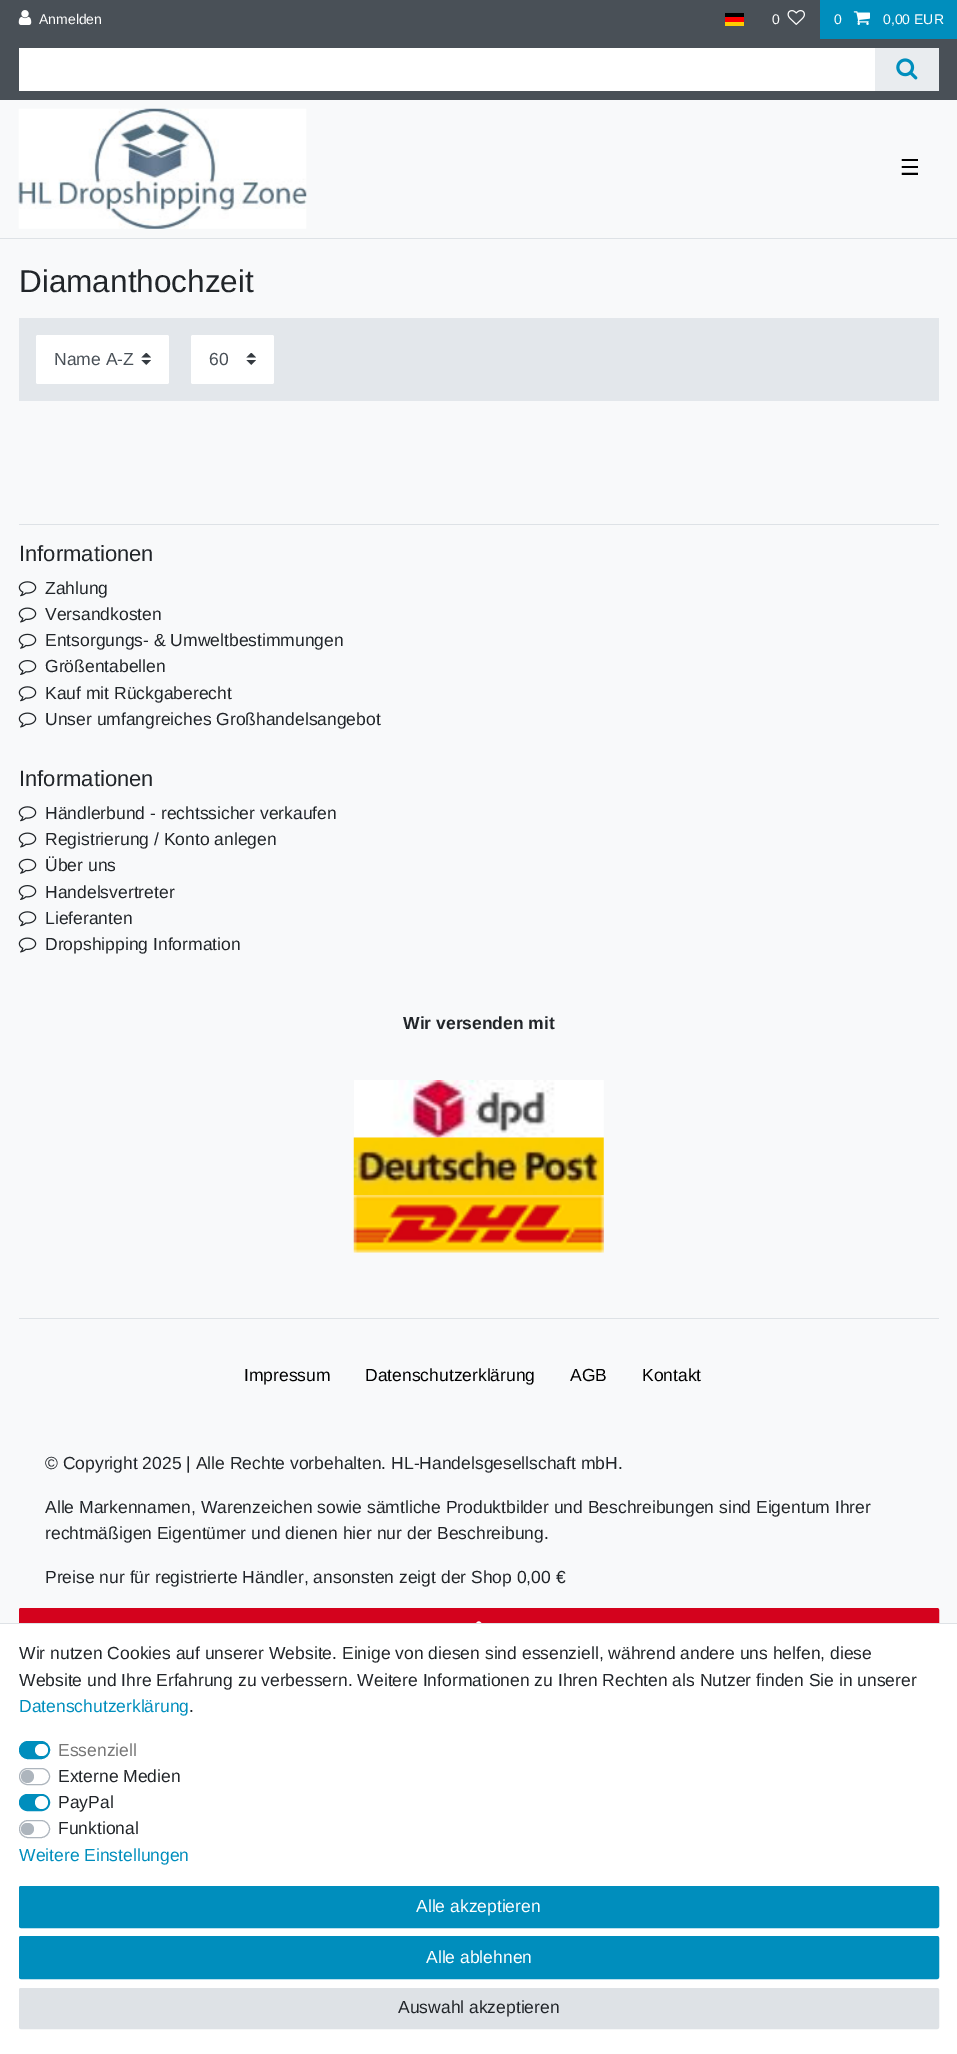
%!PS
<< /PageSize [957 2054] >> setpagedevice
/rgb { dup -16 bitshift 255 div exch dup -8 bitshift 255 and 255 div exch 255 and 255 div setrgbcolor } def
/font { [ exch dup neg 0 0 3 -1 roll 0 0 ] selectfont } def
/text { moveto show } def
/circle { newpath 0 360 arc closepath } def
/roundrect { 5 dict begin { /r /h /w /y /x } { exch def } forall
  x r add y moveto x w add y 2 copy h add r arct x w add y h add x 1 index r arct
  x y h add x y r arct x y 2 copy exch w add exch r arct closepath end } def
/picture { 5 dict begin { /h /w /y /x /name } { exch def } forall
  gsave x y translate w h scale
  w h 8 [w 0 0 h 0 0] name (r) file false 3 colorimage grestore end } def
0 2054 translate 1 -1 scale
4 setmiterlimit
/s1 { /LiberationSans-Regular 14 font 16#FFFFFF rgb } def
/s2 { /DejaVuSans-Regular 22 font 16#000000 rgb } def
/s3 { /LiberationSans-Regular 31.5 font 16#212529 rgb } def
/s4 { /LiberationSans-Regular 17.5 font 16#495057 rgb } def
/s5 { /LiberationSans-Regular 22 font 16#212529 rgb } def
/s6 { /LiberationSans-Regular 17.5 font 16#212529 rgb } def
/s7 { /LiberationSans-Bold 17.5 font 16#212529 rgb } def
/s8 { /LiberationSans-Regular 17.5 font 16#000000 rgb } def
/s9 { /LiberationSans-Regular 17.5 font 16#008EBD rgb } def
/s10 { /LiberationSans-Regular 17.5 font 16#767676 rgb } def
/s11 { /LiberationSans-Regular 17.5 font 16#FFFFFF rgb } def
16#F8F9FA rgb
0 0 957 2054 rectfill
16#495057 rgb
0 0 957 100 rectfill
(pic1.raw) 18 10 14 15 picture
s1
(Anmelden) 39 24 text
16#FFCC00 rgb
725 22 19 4 rectfill
16#000000 rgb
725 13 19 4 rectfill
16#FF0000 rgb
725 17 19 5 rectfill
s1
(0) 772 24 text
(pic2.raw) 787 10 18 15 picture
16#008EBD rgb
820 0 137 39 rectfill
s1
(0) 834 24 text
(pic3.raw) 853 11 17 14 picture
(0,00 EUR) 883 24 text
19 48 856 43 rectfill
16#E9ECEF rgb
875 48 64 43 rectfill
(pic4.raw) 896 58 22 22 picture
16#DEE2E6 rgb
0 238 957 1 rectfill
(pic5.raw) 18 108 289 121 picture
s2
(☰) 900 175 text
s3
(Diamanthochzeit) 19 292 text
16#E3E7EB rgb
19 318 920 83 rectfill
16#FFFFFF rgb
36 335 133 49 2 roundrect fill
(pic6.raw) 141 353 10 12 picture
s4
(Name A-Z) 54 365 text
16#FFFFFF rgb
191 335 83 49 2 roundrect fill
(pic6.raw) 246 353 10 12 picture
s4
(60) 209 365 text
16#DEE2E6 rgb
19 524 920 1 rectfill
s5
(Informationen) 19 561 text
(pic7.raw) 18 581 19 16 picture
s6
(Zahlung) 45 594 text
(pic8.raw) 18 607 19 16 picture
(Versandkosten) 45 620 text
(pic9.raw) 18 633 19 16 picture
(Entsorgungs- & Umweltbestimmungen) 45 646 text
(pic10.raw) 18 660 19 15 picture
(Größentabellen) 45 672 text
(pic7.raw) 18 686 19 16 picture
(Kauf mit Rückgaberecht) 45 699 text
(pic8.raw) 18 712 19 16 picture
(Unser umfangreiches Großhandelsangebot) 45 725 text
s5
(Informationen) 19 786 text
(pic7.raw) 18 806 19 16 picture
s6
(Händlerbund - rechtssicher verkaufen) 45 819 text
(pic8.raw) 18 832 19 16 picture
(Registrierung / Konto anlegen) 45 845 text
(pic9.raw) 18 858 19 16 picture
(Über uns) 45 871 text
(pic10.raw) 18 885 19 15 picture
(Handelsvertreter) 45 898 text
(pic7.raw) 18 911 19 16 picture
(Lieferanten) 45 924 text
(pic8.raw) 18 937 19 16 picture
(Dropshipping Information) 45 950 text
s7
(Wir versenden mit) 403 1029 text
(pic11.raw) 354 1080 250 58 picture
(pic12.raw) 353 1137 251 58 picture
(pic13.raw) 353 1195 251 58 picture
16#DEE2E6 rgb
19 1318 920 1 rectfill
s8
(Impressum) 244 1381 text
(Datenschutzerklärung) 365 1381 text
(AGB) 570 1381 text
(Kontakt) 642 1381 text
s6
(© Copyright 2025 | Alle Rechte vorbehalten. HL-Handelsgesellschaft mbH.) 45 1469 text
(Alle Markennamen, Warenzeichen sowie sämtliche Produktbilder und Beschreibungen sind Eigentum Ihrer) 45 1513 text
(rechtmäßigen Eigentümer und dienen hier nur der Beschreibung.) 45 1539 text
(Preise nur für registrierte Händler, ansonsten zeigt der Shop 0,00 €) 45 1583 text
16#D4021D rgb
19.5 1608.5 919 55 1.5 roundrect gsave fill grestore
stroke
16#FFFFFF rgb
0 1624 957 430 rectfill
16#DEE2E6 rgb
0 1623 957 1 rectfill
s6
(Wir nutzen Cookies auf unserer Website. Einige von diesen sind essenziell, während andere uns helfen, diese) 19 1659 text
(Website und Ihre Erfahrung zu verbessern. Weitere Informationen zu Ihren Rechten als Nutzer finden Sie in unserer) 19 1686 text
s9
(Datenschutzerklärung) 19 1712 text
s6
(.) 189 1712 text
16#008EBD rgb
19.5 1741.5 30 17 8.5 roundrect gsave fill grestore
stroke
s10
(Essenziell) 58 1756 text
16#FFFFFF rgb
35 1744 13 12 6 roundrect fill
16#ADB5BD rgb
19.5 1768.5 30 16 8 roundrect stroke
s6
(Externe Medien) 58 1782 text
16#ADB5BD rgb
27.5 1776.5 6.5 circle fill
16#008EBD rgb
19.5 1794.5 30 16 8 roundrect gsave fill grestore
stroke
s6
(PayPal) 58 1808 text
16#FFFFFF rgb
41.5 1802.5 6.5 circle fill
16#ADB5BD rgb
19.5 1820.5 30 17 8.5 roundrect stroke
s6
(Funktional) 58 1834 text
16#ADB5BD rgb
21 1823 13 12 6 roundrect fill
s9
(Weitere Einstellungen) 19 1861 text
19.5 1886.5 919 41 1.5 roundrect gsave fill grestore
stroke
s11
(Alle akzeptieren) 416 1912 text
16#008EBD rgb
19.5 1936.5 919 42 1.5 roundrect gsave fill grestore
stroke
s11
(Alle ablehnen) 426 1963 text
16#DEE2E6 rgb
19.5 1988.5 919 40 1.5 roundrect gsave fill grestore
stroke
s6
(Auswahl akzeptieren) 398 2013 text
(pic14.raw) 476 1621 6 2 picture
showpage
